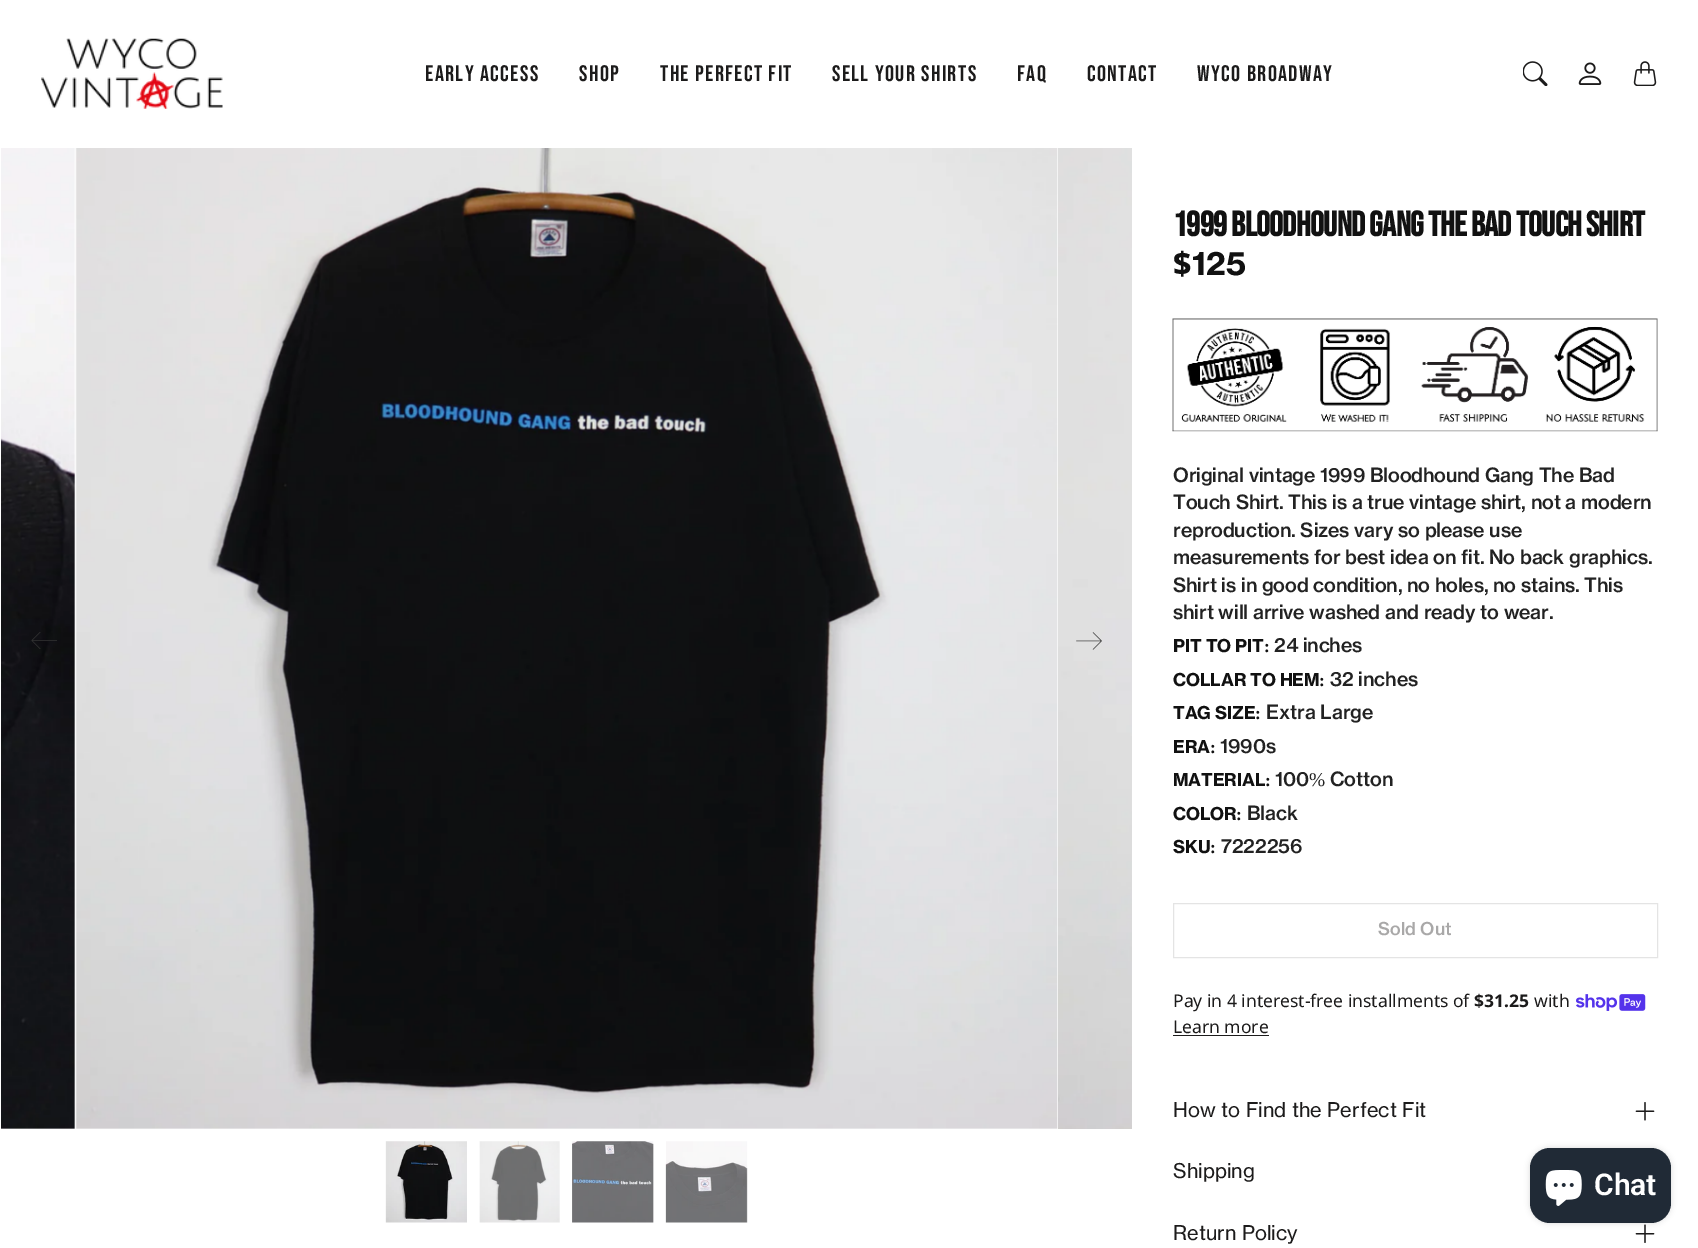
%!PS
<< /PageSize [1698 1248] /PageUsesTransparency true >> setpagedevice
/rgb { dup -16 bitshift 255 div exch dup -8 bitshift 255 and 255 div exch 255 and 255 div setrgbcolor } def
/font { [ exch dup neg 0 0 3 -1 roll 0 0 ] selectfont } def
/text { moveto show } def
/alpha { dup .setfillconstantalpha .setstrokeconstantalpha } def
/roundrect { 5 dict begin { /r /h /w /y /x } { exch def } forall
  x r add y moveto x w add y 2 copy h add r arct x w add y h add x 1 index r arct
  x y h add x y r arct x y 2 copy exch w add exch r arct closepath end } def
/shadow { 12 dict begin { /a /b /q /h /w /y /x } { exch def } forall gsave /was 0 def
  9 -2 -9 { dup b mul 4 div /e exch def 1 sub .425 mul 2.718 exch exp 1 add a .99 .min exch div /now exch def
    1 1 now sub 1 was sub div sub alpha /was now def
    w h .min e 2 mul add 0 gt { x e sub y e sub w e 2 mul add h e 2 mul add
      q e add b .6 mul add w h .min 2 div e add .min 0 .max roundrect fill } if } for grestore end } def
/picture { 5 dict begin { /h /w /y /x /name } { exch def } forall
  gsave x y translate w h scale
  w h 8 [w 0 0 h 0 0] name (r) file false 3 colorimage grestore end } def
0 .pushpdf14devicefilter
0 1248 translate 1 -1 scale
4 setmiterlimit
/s1 { /NotoSans-ExtraBold 32 font 16#111111 rgb } def
/s2 { /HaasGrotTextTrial-Bold 32 font 16#111111 rgb } def
/s3 { /NotoSans-Regular 17.5 font 16#1C1B1B rgb } def
/s4 { /NotoSans-Bold 17.5 font 16#1C1B1B rgb } def
/s5 { /Roboto-SemiBold 30 font 16#FFFFFF rgb } def
16#FFFFFF rgb
0 0 1698 1248 rectfill
(pic1.raw) 41 38 182 71 picture
/BebasNeue-Regular 22.5 font
16#1C1B1B rgb
425 81 moveto 1.4 0 (EARLY ACCESS) ashow
579 81 moveto 1.4 0 (SHOP) ashow
660 81 moveto 1.4 0 (THE PERFECT FIT) ashow
832 81 moveto 1.4 0 (SELL YOUR SHIRTS) ashow
1017 81 moveto 1.4 0 (FAQ) ashow
1087 81 moveto 1.4 0 (CONTACT) ashow
1197 81 moveto 1.4 0 (WYCO BROADWAY) ashow
(pic2.raw) 1523 61 25 25 picture
(pic3.raw) 1578 62 24 23 picture
(pic4.raw) 1633 61 24 25 picture
(pic5.raw) 1 148 74 981 picture
(pic6.raw) 75 148 983 981 picture
(pic7.raw) 1058 148 74 981 picture
(pic8.raw) 31 632 26 17 picture
(pic9.raw) 1076 632 26 18 picture
(pic10.raw) 385 1141 82 82 picture
(pic11.raw) 479 1141 81 82 picture
(pic12.raw) 572 1141 82 82 picture
(pic13.raw) 665 1141 83 82 picture
/BebasNeue-Bold 35 font
16#111111 rgb
1173 236 moveto -0.7 0 (1999 Bloodhound Gang The Bad Touch Shirt) ashow
s1
($) 1173 275 text
s2
(125) 1192 275 text
(pic14.raw) 1172 318 486 114 picture
/HaasGrotTextTrial-Medium 19.4 font
16#222222 rgb
1173 482 moveto -0.12 0 (Original vintage 1999 Bloodhound Gang The Bad) ashow
1173 509 moveto -0.12 0 (Touch Shirt. This is a true vintage shirt, not a modern) ashow
1173 537 moveto -0.12 0 (reproduction. Sizes vary so please use) ashow
1173 564 moveto -0.12 0 (measurements for best idea on fit. No back graphics.) ashow
1173 592 moveto -0.12 0 (Shirt is in good condition, no holes, no stains. This) ashow
1173 619 moveto -0.12 0 (shirt will arrive washed and ready to wear.) ashow
/HaasGrotTextTrial-Bold 17.5 font
16#111111 rgb
1173 652 moveto -0.12 0 (PIT TO PIT) ashow
/LiberationSerif-Bold 17.5 font
1264 652 moveto -0.12 0 (:) ashow
/HaasGrotTextTrial-Medium 19.4 font
16#222222 rgb
1274 652 moveto -0.12 0 (24 inches) ashow
/HaasGrotTextTrial-Bold 17.5 font
16#111111 rgb
1173 686 moveto -0.12 0 (COLLAR TO HEM) ashow
/LiberationSerif-Bold 17.5 font
1319 686 moveto -0.12 0 (:) ashow
/HaasGrotTextTrial-Medium 19.4 font
16#222222 rgb
1330 686 moveto -0.12 0 (32 inches) ashow
/HaasGrotTextTrial-Bold 17.5 font
16#111111 rgb
1173 719 moveto -0.12 0 (TAG SIZE) ashow
/LiberationSerif-Bold 17.5 font
1255 719 moveto -0.12 0 (:) ashow
/HaasGrotTextTrial-Medium 19.4 font
16#222222 rgb
1266 719 moveto -0.12 0 (Extra Large) ashow
/HaasGrotTextTrial-Bold 17.5 font
16#111111 rgb
1173 753 moveto -0.12 0 (ERA) ashow
/LiberationSerif-Bold 17.5 font
1210 753 moveto -0.12 0 (:) ashow
/HaasGrotTextTrial-Medium 19.4 font
16#222222 rgb
1220 753 moveto -0.12 0 (1990s) ashow
/HaasGrotTextTrial-Bold 17.5 font
16#111111 rgb
1173 786 moveto -0.12 0 (MATERIAL) ashow
/LiberationSerif-Bold 17.5 font
1265 786 moveto -0.12 0 (:) ashow
/HaasGrotTextTrial-Medium 19.4 font
16#222222 rgb
1275 786 moveto -0.12 0 (100) ashow
/LiberationSerif-Regular 19.4 font
1309 786 moveto -0.12 0 (%) ashow
/HaasGrotTextTrial-Medium 19.4 font
1330 786 moveto -0.12 0 (Cotton) ashow
/HaasGrotTextTrial-Bold 17.5 font
16#111111 rgb
1173 820 moveto -0.12 0 (COLOR) ashow
/LiberationSerif-Bold 17.5 font
1236 820 moveto -0.12 0 (:) ashow
/HaasGrotTextTrial-Medium 19.4 font
16#222222 rgb
1247 820 moveto -0.12 0 (Black) ashow
/HaasGrotTextTrial-Bold 17.5 font
16#111111 rgb
1173 853 moveto -0.12 0 (SKU) ashow
/LiberationSerif-Bold 17.5 font
1210 853 moveto -0.12 0 (:) ashow
/HaasGrotTextTrial-Medium 19.4 font
16#222222 rgb
1221 853 moveto -0.12 0 (7222256) ashow
16#E4E4E4 rgb
1173.5 903.5 484 54 rectstroke
/HaasGrotTextTrial-Medium 17.5 font
16#A9A8A8 rgb
1378 935 moveto 0.1 0 (Sold Out) ashow
s3
(Pay in 4 interest-free installments of) 1173 1007 text
s4
($31.25) 1474 1007 text
s3
(with) 1534 1007 text
(pic15.raw) 1576 994 70 17 picture
(Learn more) 1173 1033 text
1173 1035 96 1 rectfill
/HaasGrotTextTrial-Regular 20 font
1173 1117 moveto 0.1 0 (How to Find the Perfect Fit) ashow
(pic16.raw) 1635 1102 20 19 picture
1173 1178 moveto 0.1 0 (Shipping) ashow
1173 1240 moveto 0.1 0 (Return Policy) ashow
(pic17.raw) 1635 1224 20 19 picture
16#000000 rgb
1530 1148 141 75 20 3 0.15 shadow
16#202A36 rgb
1530 1148 141 75 20 roundrect fill
(pic18.raw) 1545 1170 37 36 picture
s5
(Chat) 1594 1195 text
.poppdf14devicefilter showpage
